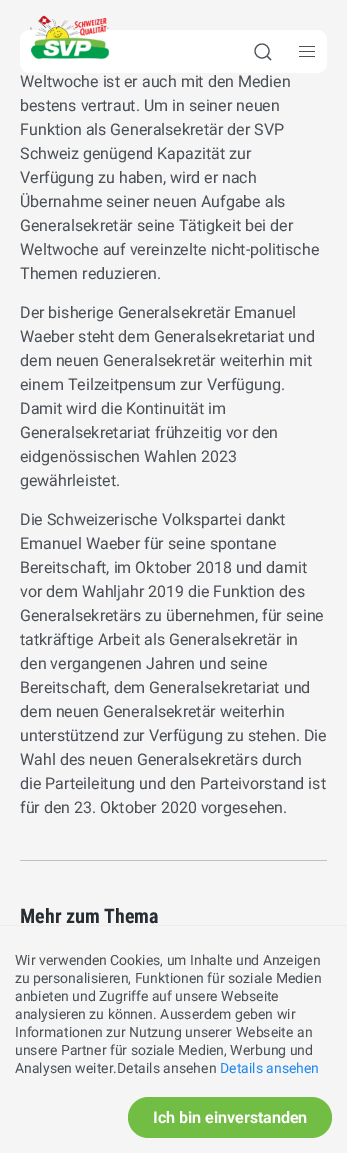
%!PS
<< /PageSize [347 1153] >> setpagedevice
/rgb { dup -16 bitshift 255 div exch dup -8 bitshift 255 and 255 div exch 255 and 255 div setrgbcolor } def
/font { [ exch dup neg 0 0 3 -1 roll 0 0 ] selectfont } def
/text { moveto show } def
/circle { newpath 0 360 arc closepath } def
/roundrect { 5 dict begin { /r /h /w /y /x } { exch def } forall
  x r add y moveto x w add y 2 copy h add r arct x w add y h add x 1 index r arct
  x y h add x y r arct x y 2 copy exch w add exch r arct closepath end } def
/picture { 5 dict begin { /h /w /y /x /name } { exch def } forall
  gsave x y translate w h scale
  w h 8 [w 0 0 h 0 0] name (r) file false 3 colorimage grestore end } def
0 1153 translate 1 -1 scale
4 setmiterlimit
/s1 { /Roboto-Regular 16 font 16#4B5157 rgb } def
/s2 { /RobotoCondensed-Bold 20 font 16#262D33 rgb } def
/s3 { /Roboto-Regular 14 font 16#4B5157 rgb } def
/s4 { /Roboto-Regular 14 font 16#1E87F0 rgb } def
/s5 { /Roboto-Bold 16 font 16#FFFFFF rgb } def
16#F5F5F5 rgb
0 0 347 1153 rectfill
16#FFFFFF rgb
20 30 307 43 10 roundrect fill
(pic1.raw) 30 15 80 45 picture
16#4B5157 rgb
1.1 setlinewidth
262 51 7 circle stroke
267 56 moveto 271 60 lineto closepath stroke
299 46 16 1 rectfill
299 51 16 1 rectfill
299 56 16 1 rectfill
s1
(Weltwoche ist er auch mit den Medien) 20 87 text
(bestens vertraut. Um in seiner neuen) 20 111 text
(Funktion als Generalsekretär der SVP) 20 135 text
(Schweiz genügend Kapazität zur) 20 159 text
(Verfügung zu haben, wird er nach) 20 183 text
(Übernahme seiner neuen Aufgabe als) 20 207 text
(Generalsekretär seine Tätigkeit bei der) 20 231 text
(Weltwoche auf vereinzelte nicht-politische) 20 255 text
(Themen reduzieren.) 20 279 text
(Der bisherige Generalsekretär Emanuel) 20 318 text
(Waeber steht dem Generalsekretariat und) 20 342 text
(dem neuen Generalsekretär weiterhin mit) 20 366 text
(einem Teilzeitpensum zur Verfügung.) 20 390 text
(Damit wird die Kontinuität im) 20 414 text
(Generalsekretariat frühzeitig vor den) 20 438 text
(eidgenössischen Wahlen 2023) 20 462 text
(gewährleistet.) 20 486 text
(Die Schweizerische Volkspartei dankt) 20 525 text
(Emanuel Waeber für seine spontane) 20 549 text
(Bereitschaft, im Oktober 2018 und damit) 20 573 text
(vor dem Wahljahr 2019 die Funktion des) 20 597 text
(Generalsekretärs zu übernehmen, für seine) 20 621 text
(tatkräftige Arbeit als Generalsekretär in) 20 645 text
(den vergangenen Jahren und seine) 20 669 text
(Bereitschaft, dem Generalsekretariat und) 20 693 text
(dem neuen Generalsekretär weiterhin) 20 717 text
(unterstützend zur Verfügung zu stehen. Die) 20 741 text
(Wahl des neuen Generalsekretärs durch) 20 765 text
(die Parteileitung und den Parteivorstand ist) 20 789 text
(für den 23. Oktober 2020 vorgesehen.) 20 813 text
16#C0C0C0 rgb
20 860 307 1 rectfill
s2
(Mehr zum Thema) 20 923 text
16#EDECE7 rgb
0 925 347 1 rectfill
s3
(Wir verwenden Cookies, um Inhalte und Anzeigen) 15 965 text
(zu personalisieren, Funktionen für soziale Medien) 15 983 text
(anbieten und Zugriffe auf unsere Webseite) 15 1001 text
(analysieren zu können. Ausserdem geben wir) 15 1019 text
(Informationen zur Nutzung unserer Webseite an) 15 1037 text
(unsere Partner für soziale Medien, Werbung und) 15 1055 text
(Analysen weiter.Details ansehen) 15 1073 text
s4
(Details ansehen) 220 1073 text
16#72BE44 rgb
128 1097 204 41 20.5 roundrect fill
s5
(Ich bin einverstanden) 153 1123 text
showpage
